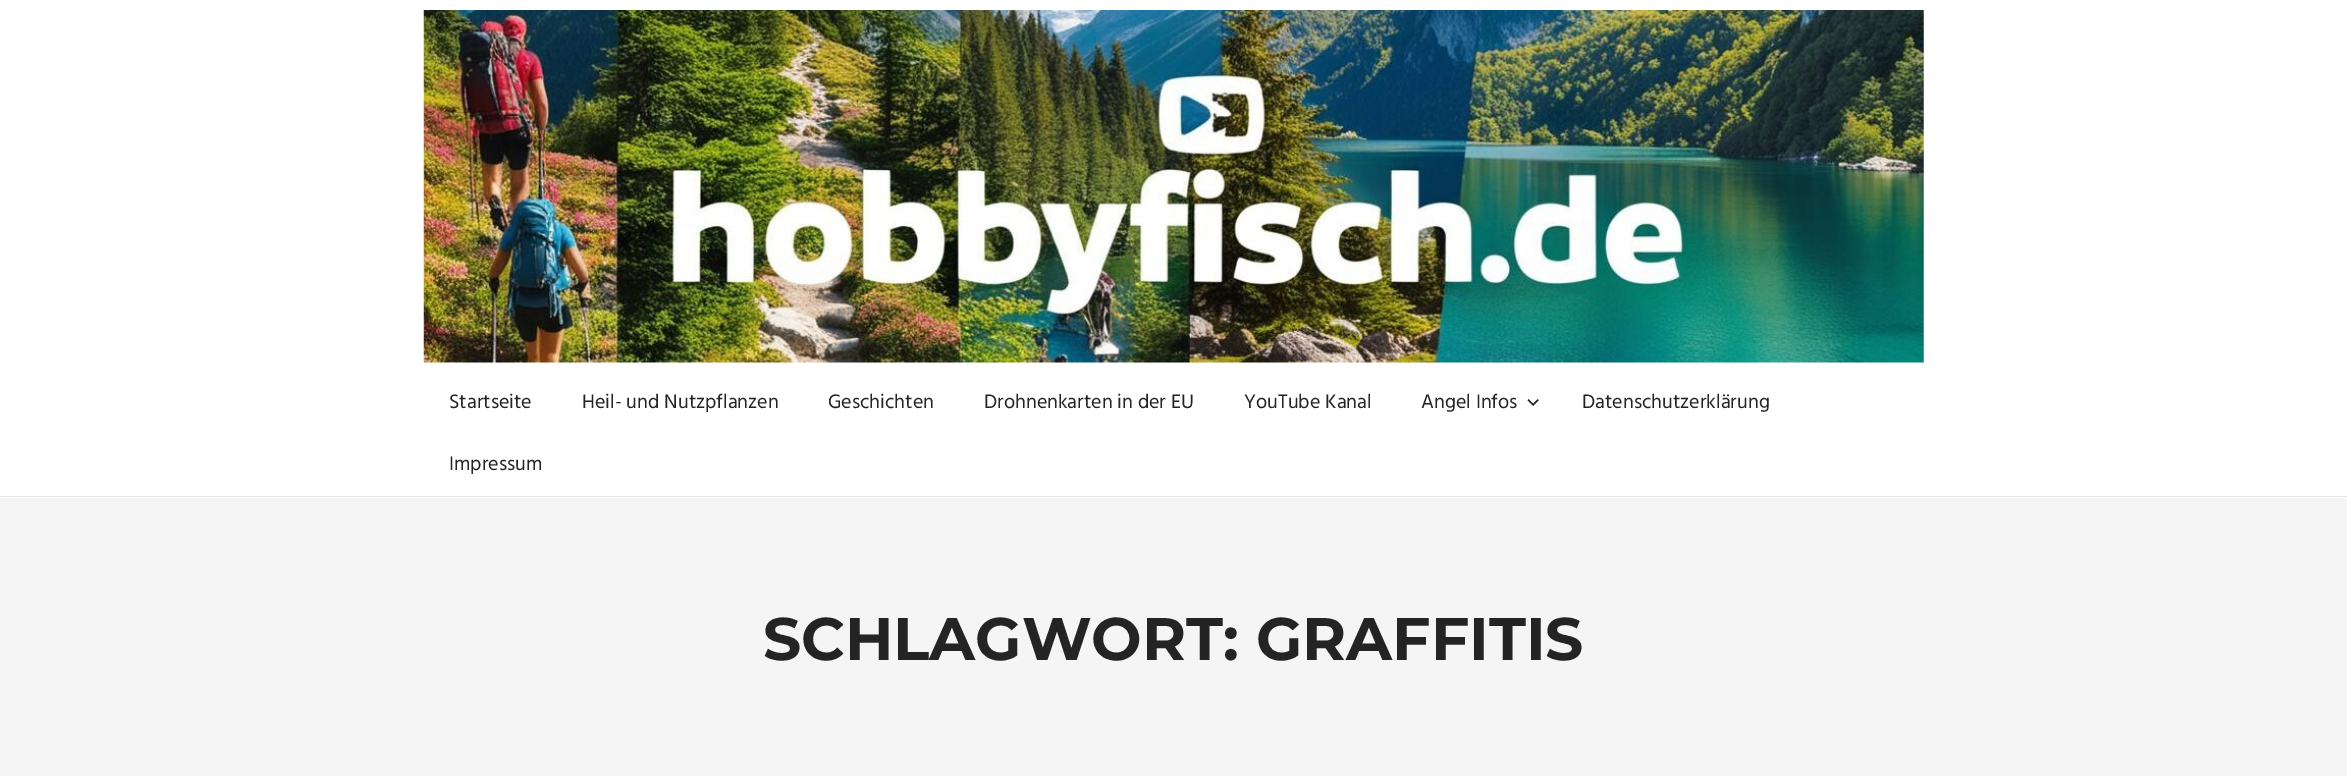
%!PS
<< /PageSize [2347 776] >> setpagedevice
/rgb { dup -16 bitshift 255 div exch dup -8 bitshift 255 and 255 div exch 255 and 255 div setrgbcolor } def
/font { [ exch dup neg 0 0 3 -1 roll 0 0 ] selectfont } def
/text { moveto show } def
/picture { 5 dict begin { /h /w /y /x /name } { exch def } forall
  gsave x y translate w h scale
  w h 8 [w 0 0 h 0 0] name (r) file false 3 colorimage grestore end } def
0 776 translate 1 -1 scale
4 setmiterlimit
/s1 { /Hind-Regular 20 font 16#242424 rgb } def
/s2 { /Montserrat-Bold 60 font 16#242424 rgb } def
16#FFFFFF rgb
0 0 2347 776 rectfill
16#E4E4E4 rgb
0 496 2347 1 rectfill
(pic1.raw) 423 10 1501 353 picture
s1
(Startseite) 449 408 text
(Heil- und Nutzpflanzen) 582 408 text
(Geschichten) 828 408 text
(Drohnenkarten in der EU) 984 408 text
(YouTube Kanal) 1244 408 text
(Angel Infos) 1421 408 text
(pic2.raw) 1527 399 12 7 picture
(Datenschutzerklärung) 1582 408 text
(Impressum) 449 470 text
16#F5F5F5 rgb
0 498 2347 278 rectfill
s2
(SCHLAGWORT: GRAFFITIS) 763 660 text
showpage
